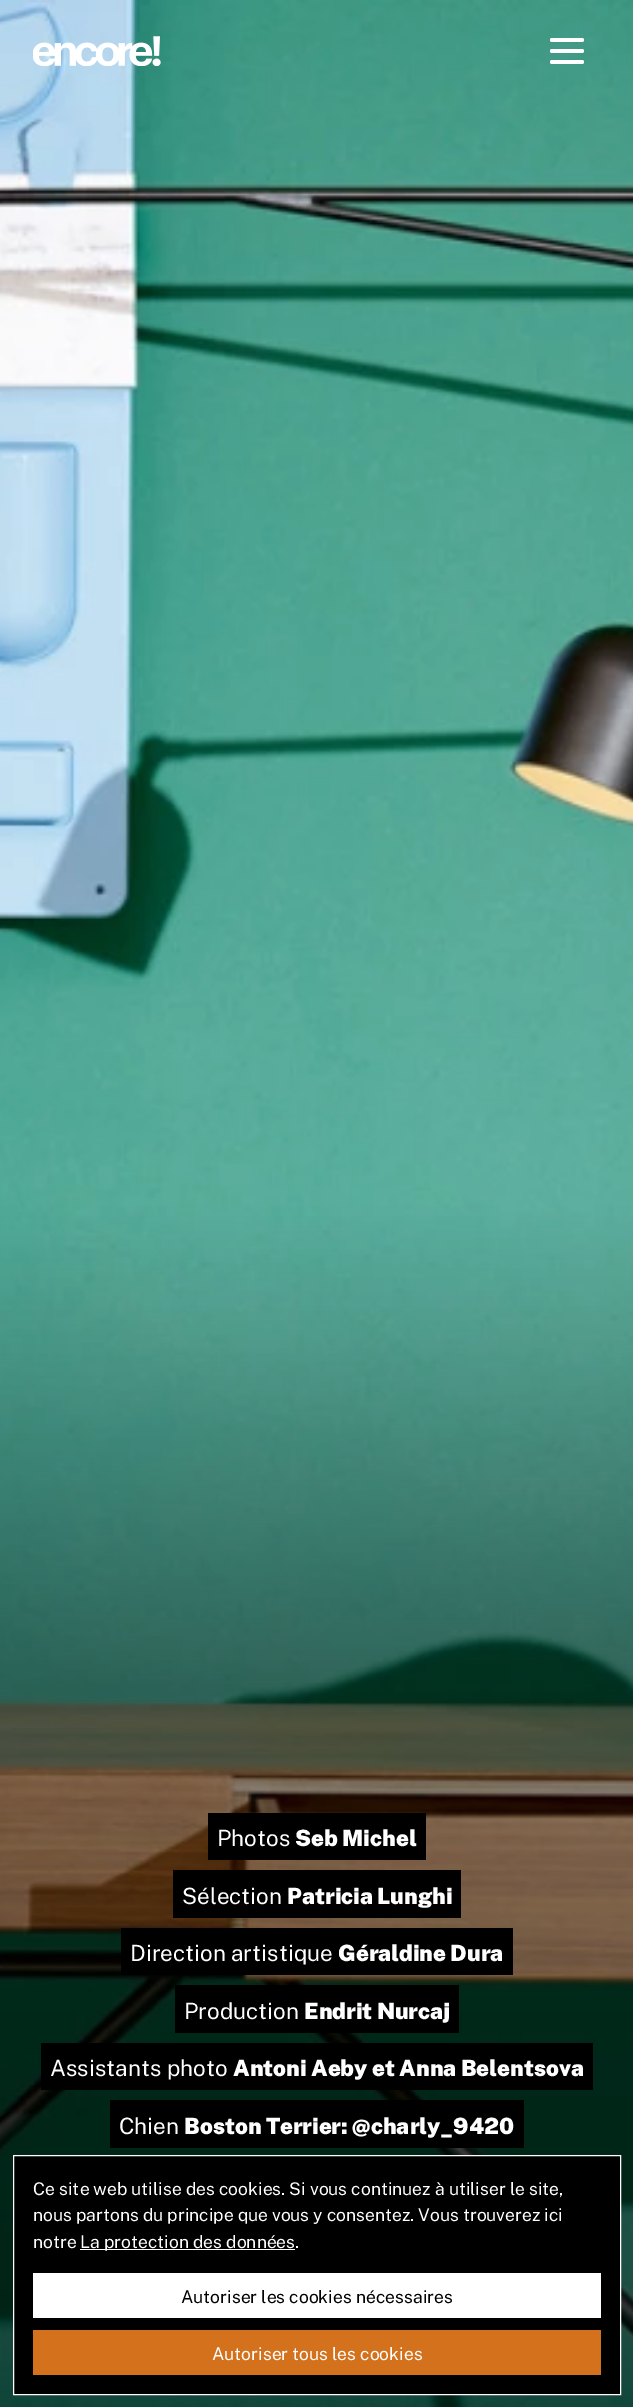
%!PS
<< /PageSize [633 2407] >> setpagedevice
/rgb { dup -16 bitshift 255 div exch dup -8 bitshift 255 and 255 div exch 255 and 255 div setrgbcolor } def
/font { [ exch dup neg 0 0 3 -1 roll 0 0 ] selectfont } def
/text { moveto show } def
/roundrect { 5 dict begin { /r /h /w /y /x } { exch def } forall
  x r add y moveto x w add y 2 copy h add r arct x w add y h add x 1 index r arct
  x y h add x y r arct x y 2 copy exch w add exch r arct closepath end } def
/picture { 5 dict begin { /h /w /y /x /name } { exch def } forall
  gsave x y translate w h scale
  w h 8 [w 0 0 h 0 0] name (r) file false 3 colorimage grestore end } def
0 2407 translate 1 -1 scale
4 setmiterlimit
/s1 { /PublicSans-Regular 22.5 font 16#FFFFFF rgb } def
/s2 { /PublicSans-Black 22.5 font 16#FFFFFF rgb } def
/s3 { /PublicSans-Regular 17.5 font 16#FFFFFF rgb } def
/s4 { /PublicSans-Regular 17.5 font 16#000000 rgb } def
16#FFFFFF rgb
0 0 633 2407 rectfill
(pic2.raw) 0 0 633 2407 picture
(pic1.raw) 33 36 128 30 picture
550 49 34 4 2 roundrect fill
550 38 34 4 2 roundrect fill
550 60 34 4 2 roundrect fill
16#000000 rgb
208 1813 218 47 rectfill
s1
(Photos) 217 1846 text
s2
(Seb Michel) 295 1846 text
16#000000 rgb
173 1870 288 48 rectfill
s1
(Sélection) 182 1904 text
s2
(Patricia Lunghi) 287 1904 text
16#000000 rgb
121 1928 392 47 rectfill
s1
(Direction artistique) 130 1961 text
s2
(Géraldine Dura) 338 1961 text
16#000000 rgb
175 1985 284 48 rectfill
s1
(Production) 184 2019 text
s2
(Endrit Nurcaj) 304 2019 text
16#000000 rgb
41 2043 552 47 rectfill
s1
(Assistants photo) 50 2076 text
s2
(Antoni Aeby et Anna Belentsova) 233 2076 text
16#000000 rgb
110 2100 414 48 rectfill
s1
(Chien) 119 2134 text
s2
(Boston Terrier: @charly_9420) 184 2134 text
16#000000 rgb
13.5 2155.5 moveto 620.5 2155.5 lineto 620.5 2394.5 lineto 13.5 2394.5 lineto closepath gsave fill grestore
16#FFFFFF rgb
stroke
s3
(Ce site web utilise des cookies. Si vous continuez à utiliser le site,) 33 2195 text
(nous partons du principe que vous y consentez. Vous trouverez ici) 33 2221 text
(notre) 33 2248 text
80 2249 215 1 rectfill
(La protection des données.) 80 2248 text
33 2273 568 45 rectfill
s4
(Autoriser les cookies nécessaires) 181 2303 text
16#D3711C rgb
33 2330 568 45 rectfill
s3
(Autoriser tous les cookies) 212 2360 text
showpage
